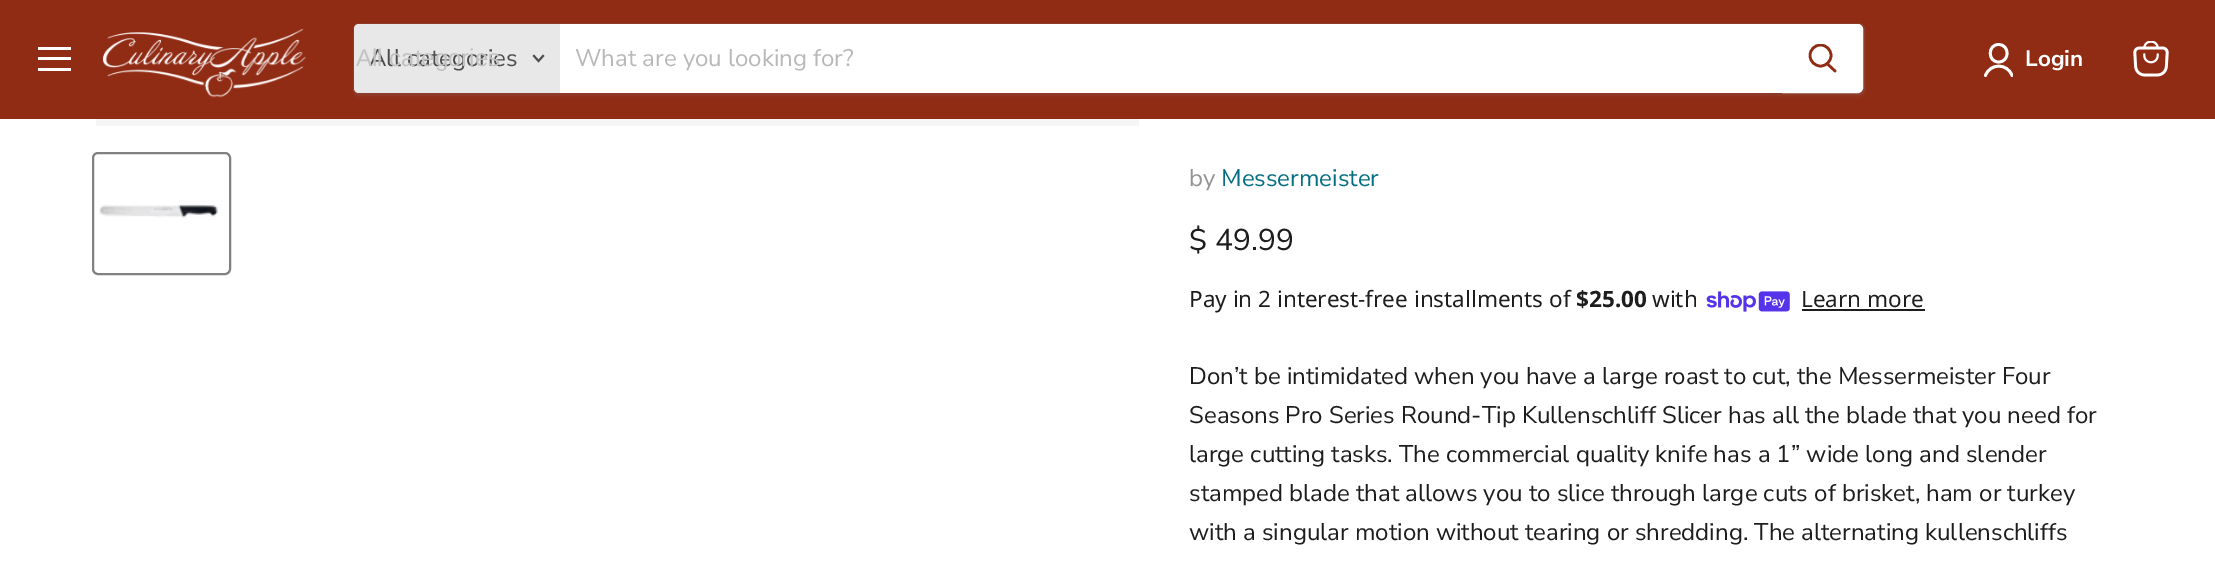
%!PS
<< /PageSize [2215 567] /PageUsesTransparency true >> setpagedevice
/rgb { dup -16 bitshift 255 div exch dup -8 bitshift 255 and 255 div exch 255 and 255 div setrgbcolor } def
/font { [ exch dup neg 0 0 3 -1 roll 0 0 ] selectfont } def
/text { moveto show } def
/alpha { dup .setfillconstantalpha .setstrokeconstantalpha } def
/circle { newpath 0 360 arc closepath } def
/roundrect { 5 dict begin { /r /h /w /y /x } { exch def } forall
  x r add y moveto x w add y 2 copy h add r arct x w add y h add x 1 index r arct
  x y h add x y r arct x y 2 copy exch w add exch r arct closepath end } def
/shadow { 12 dict begin { /a /b /q /h /w /y /x } { exch def } forall gsave /was 0 def
  9 -2 -9 { dup b mul 4 div /e exch def 1 sub .425 mul 2.718 exch exp 1 add a .99 .min exch div /now exch def
    1 1 now sub 1 was sub div sub alpha /was now def
    w h .min e 2 mul add 0 gt { x e sub y e sub w e 2 mul add h e 2 mul add
      q e add b .6 mul add w h .min 2 div e add .min 0 .max roundrect fill } if } for grestore end } def
/picture { 5 dict begin { /h /w /y /x /name } { exch def } forall
  gsave x y translate w h scale
  w h 8 [w 0 0 h 0 0] name (r) file false 3 colorimage grestore end } def
0 .pushpdf14devicefilter
0 567 translate 1 -1 scale
4 setmiterlimit
/s1 { /NunitoSans-Regular 24 font 16#4D4D4D rgb } def
/s2 { /LiberationSans-Regular 24 font 16#C2C2C2 rgb } def
/s3 { /NunitoSans-Regular 24 font 16#B8B8B8 rgb } def
/s4 { /NunitoSans-Bold 22.5 font 16#FFFFFF rgb } def
/s5 { /NunitoSans-Regular 24 font 16#949494 rgb } def
/s6 { /NunitoSans-Regular 24 font 16#046E82 rgb } def
/s7 { /NunitoSans-Regular 30 font 16#1D1D1D rgb } def
/s8 { /NotoSans-Regular 22.5 font 16#1D1D1D rgb } def
/s9 { /NotoSans-Bold 22.5 font 16#1D1D1D rgb } def
/s10 { /NunitoSans-Regular 24 font 16#1D1D1D rgb } def
16#FFFFFF rgb
0 0 2215 567 rectfill
16#902B14 rgb
0 0 2215 119 rectfill
16#FFFFFF rgb
38 47 33 3 rectfill
38 57 33 3 rectfill
38 68 33 3 rectfill
(pic1.raw) 102 28 204 70 picture
gsave
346 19 moveto 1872 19 lineto 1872 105 lineto 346 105 lineto closepath 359 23 moveto 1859 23 lineto 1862.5 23 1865 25.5 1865 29 curveto 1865 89 lineto 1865 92.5 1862.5 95 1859 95 curveto 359 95 lineto 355.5 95 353 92.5 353 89 curveto 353 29 lineto 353 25.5 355.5 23 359 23 curveto closepath eoclip newpath
16#808080 rgb
353 26 1512 72 6 2 0.11 shadow
grestore
0.2 alpha
16#808080 rgb
2 setlinewidth
354 24 1510 70 5 roundrect stroke
1 alpha
16#E8E8E8 rgb
359 24 moveto 560 24 lineto 560 93 lineto 359 93 lineto 356 93 354 91 354 88 curveto 354 29 lineto 354 26 356 24 359 24 curveto closepath fill
s1
(All categories) 369 66 text
s2
(All categories) 356 66 text
16#4D4D4D rgb
1.9 setlinewidth
2 setlinecap
538.5 61 moveto 543 56 lineto 538.5 61 moveto 534 56 lineto stroke
16#FFFFFF rgb
560 24 1222 69 rectfill
s3
(What are you looking for?) 575 66 text
16#FFFFFF rgb
1783 25 moveto 1858 25 lineto 1860 25 1862 27 1862 29 curveto 1862 88 lineto 1862 90 1860 92 1858 92 curveto 1783 92 lineto closepath gsave fill grestore
2 setlinewidth
0 setlinecap
stroke
16#902B14 rgb
2.6 setlinewidth
1 setlinecap
1835 71 moveto 1827.5 64 lineto stroke
gsave
1808 44 30 31 rectclip
0 setlinecap
1820.5 55.5 10.5 circle stroke
grestore
16#FFFFFF rgb
2.8 setlinewidth
1 setlinejoin
1998.5 62 moveto 2010 62 2010 44.5 1998.5 44.5 curveto 1987.5 44.5 1987.5 62 1998.5 62 curveto closepath stroke
gsave
1983 42 30 35 rectclip
2012 75.5 moveto 2007.5 63 1990 63 1985.5 75.5 curveto stroke
grestore
s4
(Login) 2025 66 text
(pic2.raw) 2133 41 36 36 picture
16#F6F6F6 rgb
96 119 1043 7 rectfill
16#818181 rgb
2 setlinewidth
0 setlinecap
0 setlinejoin
93 153 137 121 5 roundrect stroke
(pic3.raw) 98 204 124 16 picture
s5
(by) 1189 186 text
s6
(Messermeister) 1221 186 text
s7
($ 49.99) 1189 250 text
s8
(Pay in 2 interest-free installments of) 1189 307 text
s9
($25.00) 1576 307 text
s8
(with) 1652 307 text
(pic4.raw) 1706 291 84 21 picture
(Learn more) 1801 307 text
1802 309 123 2 rectfill
s10
(Don’t be intimidated when you have a large roast to cut, the Messermeister Four) 1189 384 text
(Seasons Pro Series Round-Tip Kullenschliff Slicer has all the blade that you need for) 1189 423 text
(large cutting tasks. The commercial quality knife has a 1” wide long and slender) 1189 462 text
(stamped blade that allows you to slice through large cuts of brisket, ham or turkey) 1189 501 text
(with a singular motion without tearing or shredding. The alternating kullenschliffs) 1189 540 text
.poppdf14devicefilter showpage
